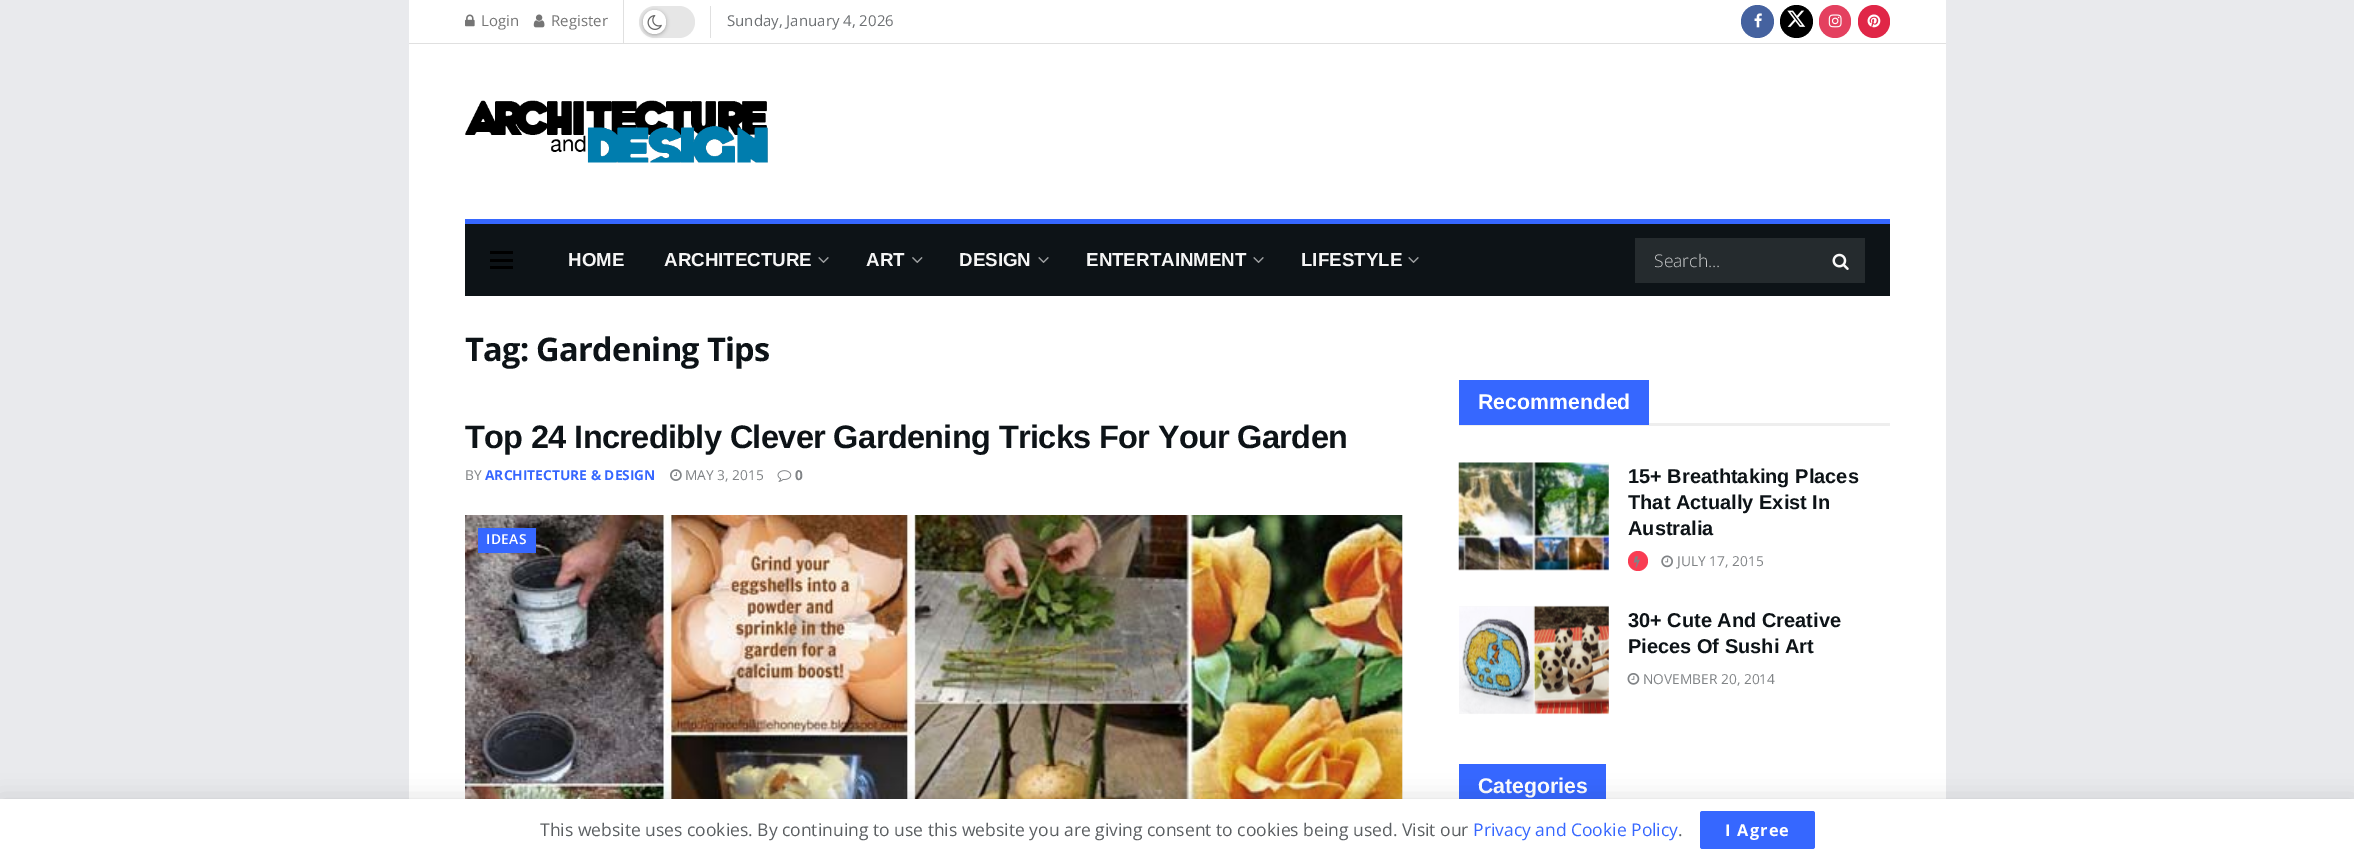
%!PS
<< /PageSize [2354 861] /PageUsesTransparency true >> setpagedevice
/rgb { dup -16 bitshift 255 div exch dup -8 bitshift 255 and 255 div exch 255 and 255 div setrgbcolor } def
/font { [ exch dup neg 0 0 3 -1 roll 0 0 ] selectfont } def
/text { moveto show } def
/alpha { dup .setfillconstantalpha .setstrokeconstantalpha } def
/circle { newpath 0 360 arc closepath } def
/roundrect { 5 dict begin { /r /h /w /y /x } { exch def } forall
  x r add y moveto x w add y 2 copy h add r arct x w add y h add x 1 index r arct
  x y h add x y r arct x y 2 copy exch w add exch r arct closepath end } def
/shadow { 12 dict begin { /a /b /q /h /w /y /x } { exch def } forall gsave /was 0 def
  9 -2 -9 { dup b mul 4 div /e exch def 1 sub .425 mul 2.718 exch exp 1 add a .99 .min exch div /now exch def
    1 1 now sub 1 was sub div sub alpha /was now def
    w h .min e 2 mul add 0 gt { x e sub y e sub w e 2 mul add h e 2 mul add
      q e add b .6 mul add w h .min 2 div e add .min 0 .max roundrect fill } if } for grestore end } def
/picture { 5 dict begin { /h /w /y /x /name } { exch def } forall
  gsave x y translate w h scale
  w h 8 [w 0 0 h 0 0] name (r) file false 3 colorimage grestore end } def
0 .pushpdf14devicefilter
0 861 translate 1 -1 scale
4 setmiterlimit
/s1 { /OpenSans-Regular 15 font 16#757575 rgb } def
/s2 { /OpenSans-Regular 15 font 16#6D7073 rgb } def
/s3 { /LiberationSans-Bold 18.75 font 16#F5F5F5 rgb } def
/s4 { /OpenSans-Light 17.5 font 16#C9CACB rgb } def
/s5 { /OpenSans-Regular 13.75 font 16#808386 rgb } def
/s6 { /OpenSans-Bold 13.75 font 16#3667FF rgb } def
/s7 { /OpenSans-Bold 13.75 font 16#808386 rgb } def
/s8 { /LiberationSans-Bold 21.25 font 16#FFFFFF rgb } def
/s9 { /LiberationSans-Bold 20 font 16#0D1317 rgb } def
/s10 { /OpenSans-Regular 17.5 font 16#5B5F62 rgb } def
/s11 { /OpenSans-Regular 17.5 font 16#3667FF rgb } def
16#E9EAED rgb
0 0 2354 861 rectfill
16#FFFFFF rgb
409 0 1537 43 rectfill
16#E0E0E0 rgb
409 43 1537 1 rectfill
623 0 1 43 rectfill
(pic1.raw) 465 14 10 13 picture
s1
(Login) 481 26 text
(pic2.raw) 533 14 12 14 picture
(Register) 551 26 text
16#E0E0E0 rgb
710 6 1 32 rectfill
16#E6E6E6 rgb
639 6 56 32 16 roundrect fill
16#000000 rgb
643 11 23 24 11.5 2 0.3 shadow
16#FFFFFF rgb
643 10 23 24 11.5 roundrect fill
(pic3.raw) 647 15 15 15 picture
s2
(Sunday, January 4, 2026) 727 26 text
16#45629F rgb
1757.5 21.5 16.5 circle fill
(pic4.raw) 1754 13 8 15 picture
16#000000 rgb
1796.5 21.5 16.5 circle fill
(pic5.raw) 1787 10 19 17 picture
16#E4405F rgb
1819 5 32 33 16 roundrect fill
(pic6.raw) 1828 14 14 14 picture
16#E02647 rgb
1858 5 32 33 16 roundrect fill
(pic7.raw) 1867 14 14 14 picture
16#FFFFFF rgb
409 44 1537 755 rectfill
(pic8.raw) 465 100 303 63 picture
16#0D1317 rgb
465 224 1425 72 rectfill
16#3667FF rgb
465 219 1425 5 rectfill
16#000000 rgb
490 251 23 3 rectfill
490 259 23 3 rectfill
490 266 23 3 rectfill
s3
(HOME) 568 266 text
(ARCHITECTURE) 664 266 text
(pic9.raw) 818 257 11 6 picture
(ART) 866 266 text
(pic10.raw) 912 257 11 6 picture
(DESIGN) 959 266 text
(pic9.raw) 1038 257 11 6 picture
(ENTERTAINMENT) 1086 266 text
(pic9.raw) 1253 257 11 6 picture
(LIFESTYLE) 1301 266 text
(pic9.raw) 1408 257 11 6 picture
16#252B2E rgb
1635 238 230 45 rectfill
s4
(Search...) 1654 267 text
(pic11.raw) 1832 253 17 17 picture
/OpenSans-Bold 32.5 font
16#0D1317 rgb
465 361 moveto -0.65 0 (Tag: Gardening Tips) ashow
/LiberationSans-Bold 32.5 font
465 448 moveto -0.65 0 (Top 24 Incredibly Clever Gardening Tricks For Your Garden) ashow
s5
(BY) 465 480 text
s6
(ARCHITECTURE & DESIGN) 485 480 text
(pic12.raw) 670 469 12 12 picture
s5
(MAY 3, 2015) 685 480 text
(pic13.raw) 777 470 15 12 picture
s7
(0) 795 480 text
16#F7F7F7 rgb
1402 515 1 284 rectfill
(pic14.raw) 465 515 938 284 picture
16#3667FF rgb
478 528 58 25 rectfill
/OpenSans-SemiBold 13.75 font
16#FFFFFF rgb
486 544 moveto 0.5 0 (IDEAS) ashow
16#EEEEEE rgb
1459 423 431 3 rectfill
16#3667FF rgb
1459 380 190 45 rectfill
s8
(Recommended) 1478 409 text
16#F7F7F7 rgb
1459 463 150 107 rectfill
(pic16.raw) 1459 462 150 107 picture
(pic15.raw) 1458 462 151 109 picture
s9
(15+ Breathtaking Places) 1628 483 text
(That Actually Exist In) 1628 509 text
(Australia) 1628 535 text
16#F93D53 rgb
1638 561 10 circle fill
(pic17.raw) 1633 556 7 12 picture
(pic18.raw) 1661 555 12 13 picture
s5
(JULY 17, 2015) 1677 566 text
16#F7F7F7 rgb
1459 606 150 108 rectfill
(pic19.raw) 1459 605 150 110 picture
s9
(30+ Cute And Creative) 1628 627 text
(Pieces Of Sushi Art) 1628 653 text
(pic20.raw) 1627 673 13 12 picture
s5
(NOVEMBER 20, 2014) 1643 684 text
16#3667FF rgb
1459 764 147 35 rectfill
s8
(Categories) 1478 793 text
16#000000 rgb
0 801 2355 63 0 12.5 0.15 shadow
16#FFFFFF rgb
0 799 2354 62 rectfill
s10
(This website uses cookies. By continuing to use this website you are giving consent to cookies being used. Visit our) 540 836 text
s11
(Privacy and Cookie Policy) 1473 836 text
s10
(.) 1678 836 text
16#3667FF rgb
1700 811 115 38 2.5 roundrect fill
/OpenSans-Bold 16.25 font
16#FFFFFF rgb
1725 836 moveto 1.25 0 (I Agree) ashow
.poppdf14devicefilter showpage
